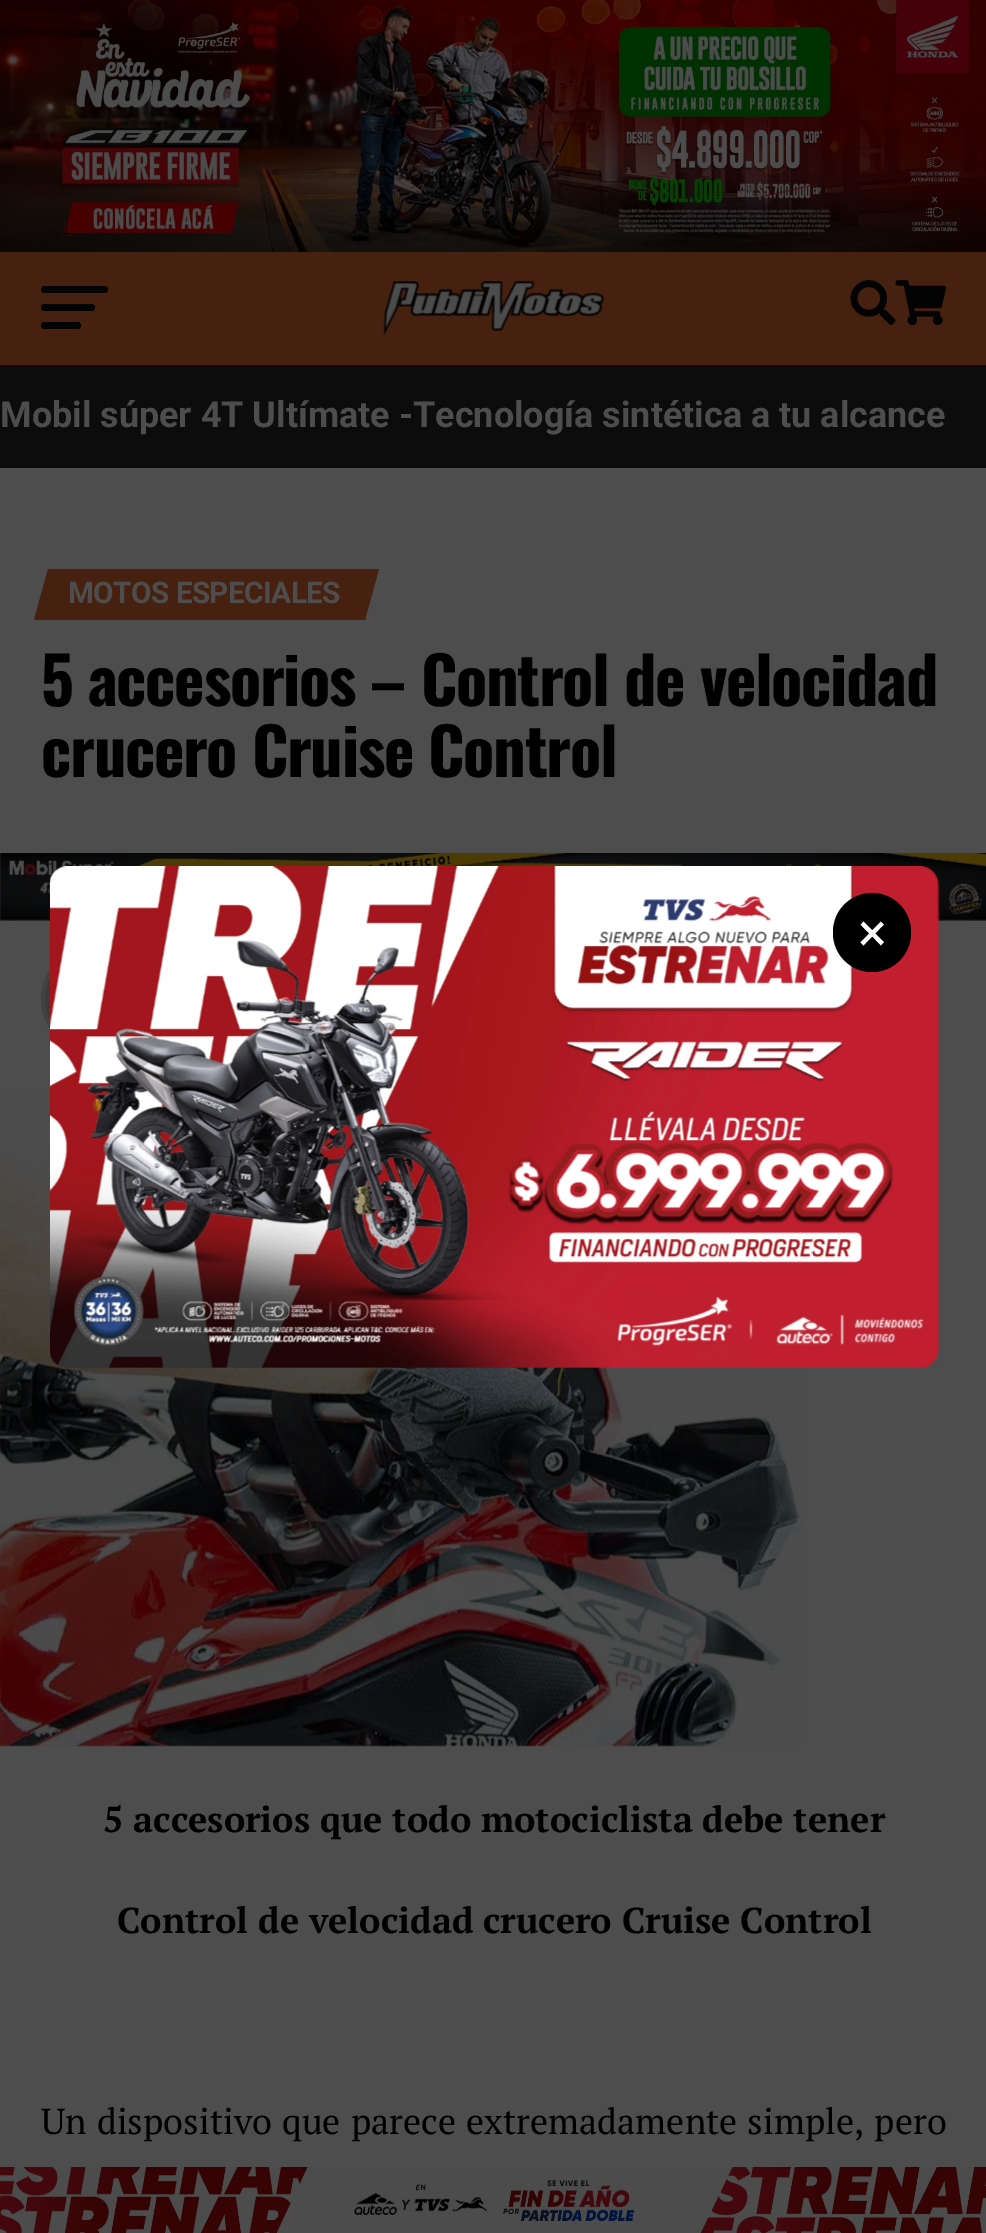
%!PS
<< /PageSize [986 2233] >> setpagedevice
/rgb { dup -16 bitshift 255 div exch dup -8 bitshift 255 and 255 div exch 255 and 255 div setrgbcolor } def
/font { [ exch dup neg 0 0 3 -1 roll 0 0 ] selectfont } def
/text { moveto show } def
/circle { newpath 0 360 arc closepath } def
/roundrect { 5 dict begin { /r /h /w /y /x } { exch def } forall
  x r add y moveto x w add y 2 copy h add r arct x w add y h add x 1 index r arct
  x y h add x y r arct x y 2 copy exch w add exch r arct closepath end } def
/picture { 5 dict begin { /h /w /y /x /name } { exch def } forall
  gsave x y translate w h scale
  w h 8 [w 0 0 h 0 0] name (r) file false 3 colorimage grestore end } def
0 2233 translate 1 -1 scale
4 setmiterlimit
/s1 { /Roboto-Bold 36 font 16#4D4D4D rgb } def
/s2 { /PTSerif-Bold 36 font 16#000000 rgb } def
/s3 { /Roboto-Regular 54 font 16#FFFFFF rgb } def
16#4D4D4D rgb
0 0 986 2233 rectfill
(pic1.raw) 0 0 986 252 picture
16#472110 rgb
0 252 986 113 rectfill
16#030303 rgb
41 286 67 7 3.5 roundrect fill
41 304 54 7 3.5 roundrect fill
41 322 40 7 3.5 roundrect fill
(pic2.raw) 383 280 222 56 picture
(pic4.raw) 895 280 52 46 picture
(pic3.raw) 850 280 46 46 picture
16#0C0C0C rgb
0 365 986 103 rectfill
s1
(Mobil súper 4T Ultímate -Tecnología sintética a tu alcance) 0 427 text
16#472110 rgb
48 569 moveto 379 569 lineto 365 620 lineto 34 620 lineto closepath fill
/Roboto-Bold 29.75 font
16#4D4D4D rgb
68 603 moveto -0.6 0 (MOTOS ESPECIALES) ashow
/Oswald-Bold 64.75 font
16#000000 rgb
41 706 moveto -1.3 0 (5 accesorios – Control de velocidad) ashow
41 777 moveto -1.3 0 (crucero Cruise Control) ashow
(pic5.raw) 0 853 986 68 picture
16#424242 rgb
5 setlinewidth
97 999 53.5 circle stroke
(pic6.raw) 45 976 5 46 picture
(pic7.raw) 0 1088 803 659 picture
s2
(5 accesorios que todo motociclista debe tener) 103 1832 text
(Control de velocidad crucero Cruise Control) 117 1933 text
/PTSerif-Regular 36 font
41 2134 moveto 1.25 0 32 (Un dispositivo que parece extremadamente simple, pero) widthshow
(pic8.raw) 0 2167 986 66 picture
(pic9.raw) 50 866 889 502 picture
833 893 78 79 39 roundrect fill
s3
(×) 858 951 text
showpage
